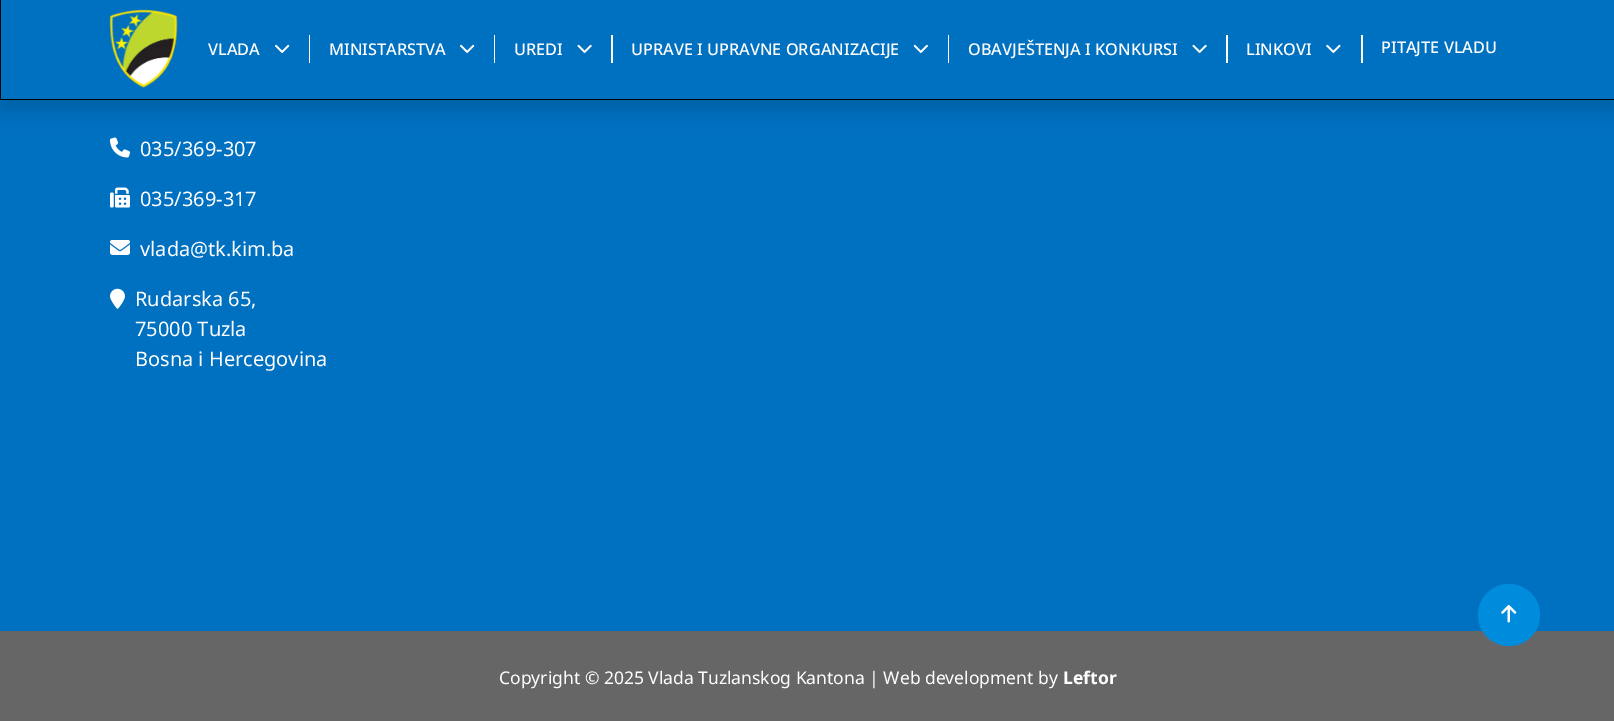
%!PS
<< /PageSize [1614 721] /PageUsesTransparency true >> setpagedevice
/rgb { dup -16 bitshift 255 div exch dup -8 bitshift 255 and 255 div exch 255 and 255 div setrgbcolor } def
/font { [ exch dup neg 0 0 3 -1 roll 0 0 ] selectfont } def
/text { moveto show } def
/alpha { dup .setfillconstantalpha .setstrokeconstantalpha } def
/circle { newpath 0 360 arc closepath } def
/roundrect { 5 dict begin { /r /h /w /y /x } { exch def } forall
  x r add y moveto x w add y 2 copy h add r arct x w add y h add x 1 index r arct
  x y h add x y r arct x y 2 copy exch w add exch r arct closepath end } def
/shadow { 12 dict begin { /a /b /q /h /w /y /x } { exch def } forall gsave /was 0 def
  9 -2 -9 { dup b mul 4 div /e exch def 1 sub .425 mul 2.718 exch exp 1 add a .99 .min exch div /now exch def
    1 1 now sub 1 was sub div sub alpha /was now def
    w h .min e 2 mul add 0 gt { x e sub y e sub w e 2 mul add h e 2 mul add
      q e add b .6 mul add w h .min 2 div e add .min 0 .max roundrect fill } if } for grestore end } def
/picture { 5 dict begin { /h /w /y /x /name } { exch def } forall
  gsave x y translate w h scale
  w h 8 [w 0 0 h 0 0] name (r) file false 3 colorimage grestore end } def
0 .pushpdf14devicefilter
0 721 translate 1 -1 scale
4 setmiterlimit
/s1 { /NotoSans-Medium 16.25 font 16#FFFFFF rgb } def
/s2 { /NotoSans-Regular 20 font 16#FFFFFF rgb } def
/s3 { /NotoSans-Regular 17.5 font 16#FFFFFF rgb } def
/s4 { /NotoSans-Bold 17.5 font 16#FFFFFF rgb } def
16#0070C0 rgb
0 0 1614 721 rectfill
(pic6.raw) 110 137 20 21 picture
16#000000 rgb
0 -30 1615 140 0 10 0.15 shadow
16#0070C0 rgb
1 0 1613 99 rectfill
16#000000 rgb
0 99 1614 1 rectfill
0 0 1 100 rectfill
(pic1.raw) 109 9 69 79 picture
16#FFFFFF rgb
309 35 1 28 rectfill
s1
(VLADA) 208 55 text
(pic2.raw) 275 44 15 9 picture
494 35 1 28 rectfill
(MINISTARSTVA) 329 55 text
(pic2.raw) 460 44 15 9 picture
611 35 2 28 rectfill
(UREDI) 514 55 text
(pic3.raw) 577 44 15 9 picture
948 35 1 28 rectfill
(UPRAVE I UPRAVNE ORGANIZACIJE) 631 55 text
(pic4.raw) 913 44 15 9 picture
1226 35 2 28 rectfill
(OBAVJEŠTENJA I KONKURSI) 968 55 text
(pic3.raw) 1192 44 15 9 picture
1361 35 2 28 rectfill
(LINKOVI) 1246 55 text
(pic5.raw) 1326 44 15 9 picture
(PITAJTE VLADU) 1381 53 text
s2
(035/369-307) 140 156 text
(pic7.raw) 110 187 20 21 picture
(035/369-317) 140 206 text
(pic8.raw) 110 240 20 15 picture
(vlada@tk.kim.ba) 140 256 text
(pic9.raw) 110 288 15 21 picture
(Rudarska 65,) 135 306 text
(75000 Tuzla) 135 336 text
(Bosna i Hercegovina) 135 366 text
16#666666 rgb
0 631 1614 90 rectfill
16#008CDD rgb
1509 615 31 circle fill
(pic10.raw) 1501 605 16 18 picture
s3
(Copyright © 2025 Vlada Tuzlanskog Kantona | Web development by) 499 684 text
s4
(Leftor) 1063 684 text
.poppdf14devicefilter showpage
